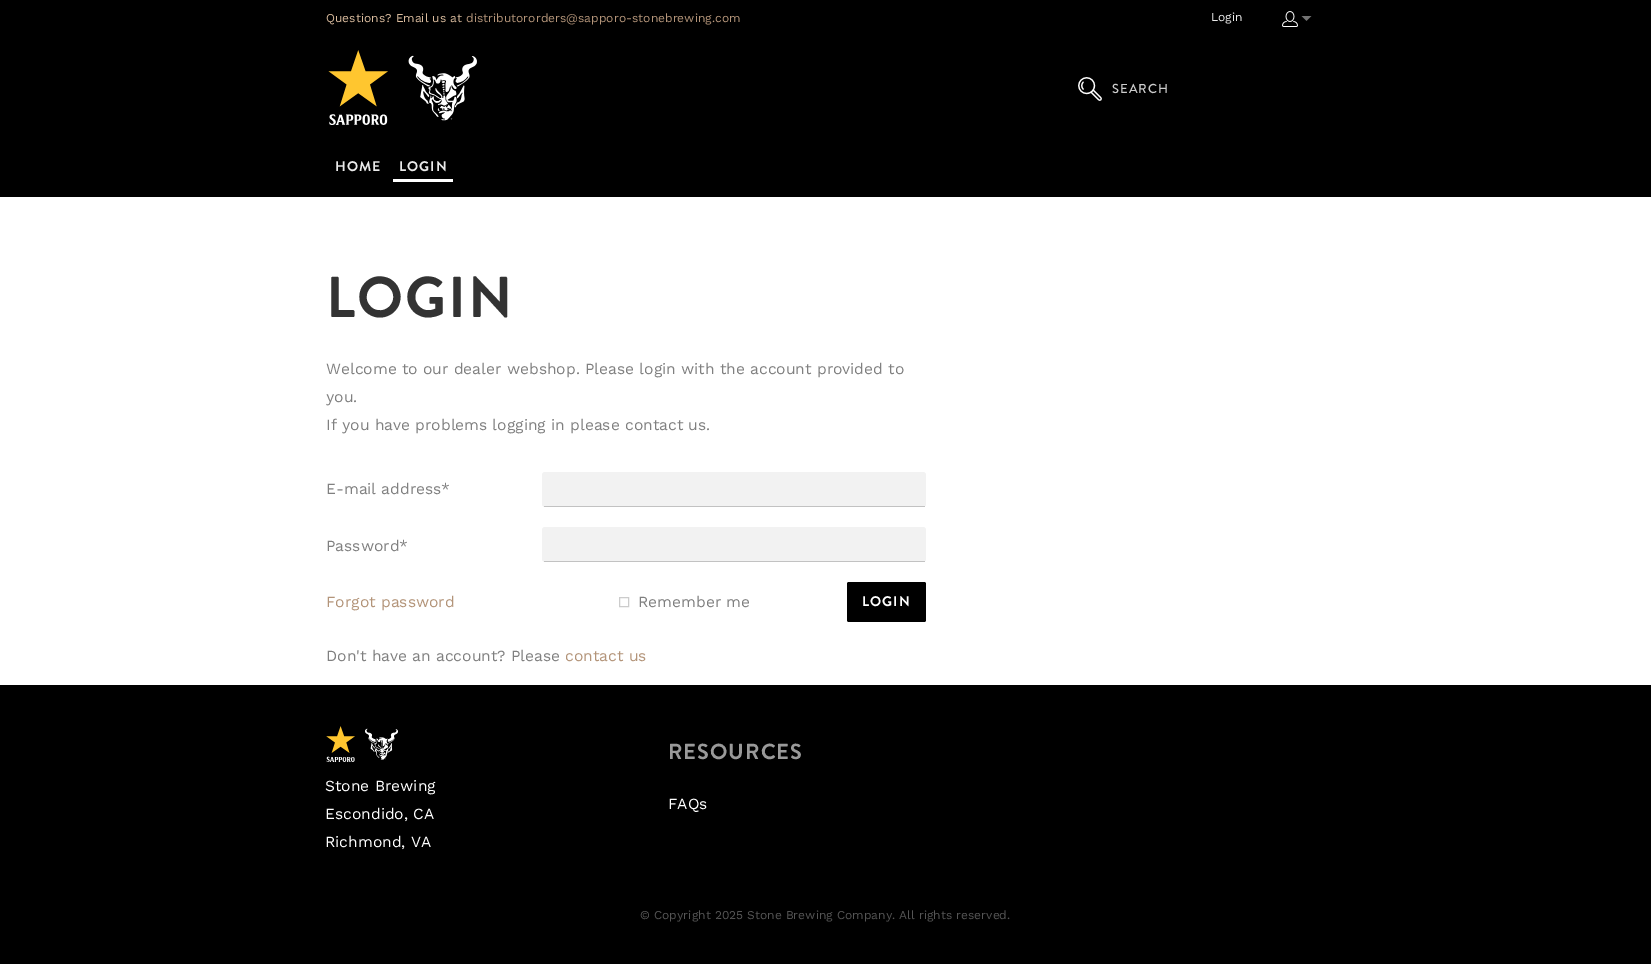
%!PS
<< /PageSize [1651 964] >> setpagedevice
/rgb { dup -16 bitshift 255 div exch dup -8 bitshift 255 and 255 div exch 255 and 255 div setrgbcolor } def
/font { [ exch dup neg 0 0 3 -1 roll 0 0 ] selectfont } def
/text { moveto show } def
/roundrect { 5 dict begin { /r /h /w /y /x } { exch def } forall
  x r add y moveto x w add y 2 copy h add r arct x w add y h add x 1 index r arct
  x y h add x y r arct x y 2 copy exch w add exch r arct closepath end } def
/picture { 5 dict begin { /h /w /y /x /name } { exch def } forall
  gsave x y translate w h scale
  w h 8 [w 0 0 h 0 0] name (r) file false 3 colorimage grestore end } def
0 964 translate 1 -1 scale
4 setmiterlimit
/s1 { /WorkSans-Regular 12 font 16#D9BB9D rgb } def
/s2 { /WorkSans-Regular 12 font 16#B39479 rgb } def
/s3 { /WorkSans-Regular 12 font 16#EAEAEA rgb } def
/s4 { /WorkSans-Regular 15.5 font 16#808080 rgb } def
/s5 { /WorkSans-Regular 15.5 font 16#B39479 rgb } def
/s6 { /WorkSans-Regular 15.5 font 16#FFFFFF rgb } def
/s7 { /WorkSans-Regular 12 font 16#555555 rgb } def
16#FFFFFF rgb
0 0 1651 964 rectfill
16#000000 rgb
0 0 1651 197 rectfill
s1
(Questions? Email us at) 326 22 text
s2
(distributororders@sapporo-stonebrewing.com) 466 22 text
s3
(Login) 1211 21 text
(pic1.raw) 1282 11 16 16 picture
(pic2.raw) 1301 16 11 5 picture
(pic3.raw) 328 50 149 75 picture
(pic4.raw) 1078 77 24 24 picture
/BrandonGrotesque-Medium 13 font
16#CCCCCC rgb
1112 93 moveto 1 0 (SEARCH) ashow
/BrandonGrotesque-Bold 14 font
16#EAEAEA rgb
335 171 moveto 1 0 (HOME) ashow
399 171 moveto 1 0 (LOGIN) ashow
16#FFFFFF rgb
393 179 60 3 rectfill
/BrandonGrotesque-Bold 57.5 font
16#333333 rgb
326 317 moveto 2 0 (LOGIN) ashow
s4
(Welcome to our dealer webshop. Please login with the account provided to) 326 374 text
(you.) 326 402 text
(If you have problems logging in please contact us.) 326 430 text
(E-mail address*) 326 494 text
16#F2F2F2 rgb
542 472 384 35 3 roundrect fill
16#C2C2C2 rgb
544 506 381 1 rectfill
s4
(Password*) 326 551 text
16#F2F2F2 rgb
542 527 384 35 3 roundrect fill
16#C2C2C2 rgb
544 561 381 1 rectfill
s5
(Forgot password) 326 607 text
16#CCCCCC rgb
619.5 597.5 9 9 rectstroke
s4
(Remember me) 638 607 text
16#000000 rgb
847 582 79 40 2 roundrect fill
/BrandonGrotesque-Bold 14 font
16#FFFFFF rgb
862 606 moveto 1 0 (LOGIN) ashow
s4
(Don't have an account? Please) 326 661 text
s5
(contact us) 565 661 text
16#000000 rgb
0 685 1651 279 rectfill
(pic5.raw) 326 726 72 36 picture
s6
(Stone Brewing) 325 791 text
(Escondido, CA) 325 819 text
(Richmond, VA) 325 847 text
/BrandonGrotesque-Bold 21.75 font
16#999999 rgb
668 759 moveto 1 0 (RESOURCES) ashow
s6
(FAQs) 668 809 text
s7
(© Copyright 2025 Stone Brewing Company. All rights reserved.) 640 919 text
showpage
